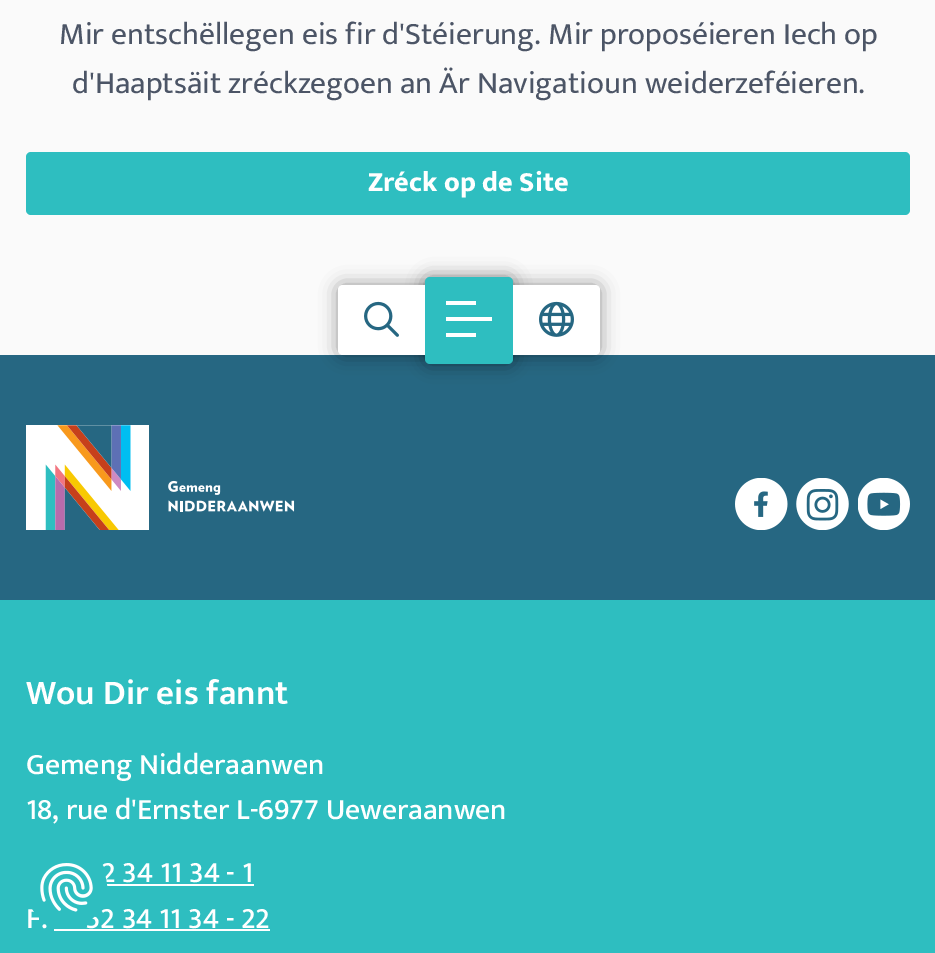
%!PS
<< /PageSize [935 953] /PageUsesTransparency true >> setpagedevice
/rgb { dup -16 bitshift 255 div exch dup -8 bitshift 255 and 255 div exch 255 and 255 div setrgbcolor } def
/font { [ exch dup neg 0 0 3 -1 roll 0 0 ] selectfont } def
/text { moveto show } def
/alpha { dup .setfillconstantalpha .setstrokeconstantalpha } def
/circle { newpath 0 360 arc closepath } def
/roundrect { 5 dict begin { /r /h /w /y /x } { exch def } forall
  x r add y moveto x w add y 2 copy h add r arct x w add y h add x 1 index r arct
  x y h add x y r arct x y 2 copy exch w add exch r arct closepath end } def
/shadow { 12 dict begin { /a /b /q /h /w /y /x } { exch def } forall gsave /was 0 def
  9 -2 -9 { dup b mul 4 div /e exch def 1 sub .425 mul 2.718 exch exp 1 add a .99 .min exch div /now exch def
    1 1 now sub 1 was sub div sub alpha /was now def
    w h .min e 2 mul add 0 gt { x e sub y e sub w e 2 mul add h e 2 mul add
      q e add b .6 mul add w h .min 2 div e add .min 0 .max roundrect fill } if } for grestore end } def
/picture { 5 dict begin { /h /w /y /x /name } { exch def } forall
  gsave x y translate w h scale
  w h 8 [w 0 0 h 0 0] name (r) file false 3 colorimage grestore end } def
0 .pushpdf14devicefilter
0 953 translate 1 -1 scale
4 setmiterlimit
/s1 { /Mukta-Regular 31.5 font 16#4C5566 rgb } def
/s2 { /Mukta-ExtraBold 28 font 16#FFFFFF rgb } def
/s3 { /Mukta-SemiBold 35 font 16#FFFFFF rgb } def
/s4 { /Mukta-Medium 29.75 font 16#FFFFFF rgb } def
16#FAFAFA rgb
0 0 935 953 rectfill
s1
(Mir entschëllegen eis fir d'Stéierung. Mir proposéieren Iech op) 59 44 text
(d'Haaptsäit zréckzegoen an Är Navigatioun weiderzeféieren.) 72 93 text
16#2EBEC0 rgb
26 152 884 63 5 roundrect fill
s2
(Zréck op de Site) 368 191 text
16#266782 rgb
0 355 935 245 rectfill
16#000000 rgb
338 285 262 70 5 9 0.4 shadow
425 277 88 87 5 9 0.4 shadow
16#FFFFFF rgb
343 285 moveto 425 285 lineto 425 355 lineto 343 355 lineto 340 355 338 353 338 350 curveto 338 290 lineto 338 287 340 285 343 285 curveto closepath fill
(pic1.raw) 364 301 35 36 picture
16#2EBEC0 rgb
425 277 88 87 5 roundrect fill
16#FFFFFF rgb
446 301 30 4 rectfill
446 317 46 4 rectfill
446 333 30 4 rectfill
513 285 moveto 595 285 lineto 598 285 600 287 600 290 curveto 600 350 lineto 600 353 598 355 595 355 curveto 513 355 lineto closepath fill
(pic2.raw) 539 301 35 36 picture
(pic3.raw) 26 425 269 105 picture
(pic4.raw) 735 478 53 52 picture
(pic5.raw) 796 478 53 52 picture
(pic6.raw) 858 478 52 52 picture
16#2EBEC0 rgb
0 600 935 353 rectfill
s3
(Wou Dir eis fannt) 26 704 text
s4
(Gemeng Nidderaanwen) 26 774 text
(18, rue d'Ernster L-6977 Ueweraanwen) 26 819 text
(2 34 11 34 - 1) 101 882 text
106 884 148 2 rectfill
(F.) 26 928 text
(52 34 11 34 - 22) 85 928 text
54 929 216 2 rectfill
16#2EBEC0 rgb
66.5 887.5 39.5 circle gsave fill grestore
2 setlinewidth
stroke
(pic7.raw) 40 863 53 49 picture
.poppdf14devicefilter showpage
